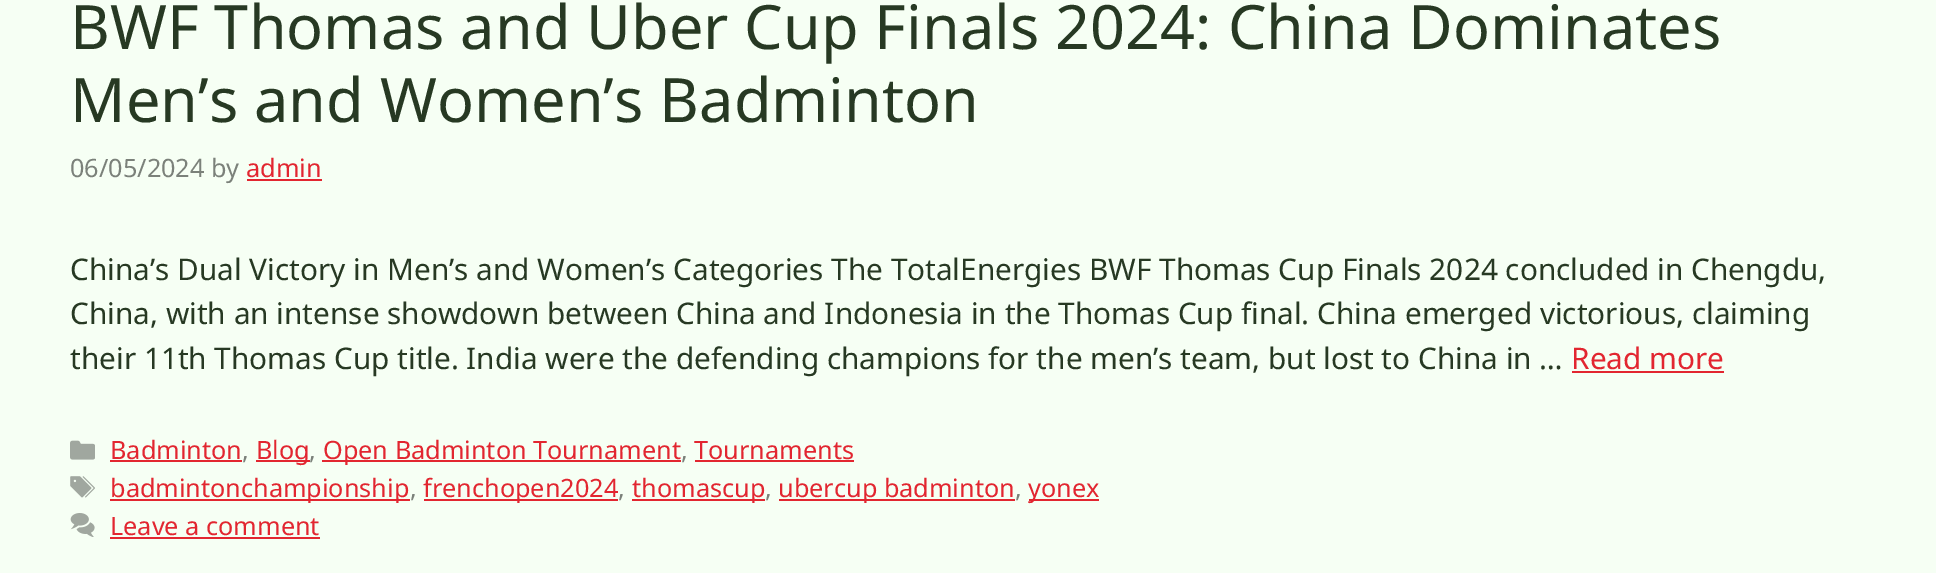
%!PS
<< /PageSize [1936 573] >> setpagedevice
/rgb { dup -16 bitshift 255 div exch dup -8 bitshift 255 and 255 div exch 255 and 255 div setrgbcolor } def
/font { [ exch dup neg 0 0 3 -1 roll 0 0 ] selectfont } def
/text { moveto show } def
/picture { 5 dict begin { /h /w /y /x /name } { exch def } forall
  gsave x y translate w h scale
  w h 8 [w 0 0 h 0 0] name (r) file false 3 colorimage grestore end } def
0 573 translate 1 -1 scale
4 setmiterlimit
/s1 { /NotoSans-Regular 61.25 font 16#273923 rgb } def
/s2 { /NotoSans-Regular 25.25 font 16#7B817A rgb } def
/s3 { /NotoSans-Regular 25.25 font 16#E22630 rgb } def
/s4 { /NotoSans-Regular 29.75 font 16#273923 rgb } def
/s5 { /NotoSans-Regular 29.75 font 16#E22630 rgb } def
16#F6FFF4 rgb
0 0 1936 573 rectfill
s1
(BWF Thomas and Uber Cup Finals 2024: China Dominates) 70 49 text
(Men’s and Women’s Badminton) 70 122 text
s2
(06/05/2024 by) 70 177 text
s3
(admin) 246 177 text
247 179 75 2 rectfill
s4
(China’s Dual Victory in Men’s and Women’s Categories The TotalEnergies BWF Thomas Cup Finals 2024 concluded in Chengdu,) 70 280 text
(China, with an intense showdown between China and Indonesia in the Thomas Cup final. China emerged victorious, claiming) 70 324 text
(their 11th Thomas Cup title. India were the defending champions for the men’s team, but lost to China in …) 70 369 text
s5
(Read more) 1571 369 text
1572 371 152 2 rectfill
(pic1.raw) 70 440 25 20 picture
s3
(Badminton) 110 459 text
110 460 132 2 rectfill
s2
(,) 242 459 text
16#E22630 rgb
256 460 54 2 rectfill
(Blog) 256 459 text
s2
(,) 309 459 text
16#E22630 rgb
322 460 359 2 rectfill
(Open Badminton Tournament) 323 459 text
s2
(,) 681 459 text
s3
(Tournaments) 694 459 text
695 460 159 2 rectfill
(pic2.raw) 70 476 25 22 picture
110 499 300 2 rectfill
(badmintonchampionship) 110 497 text
s2
(,) 410 497 text
16#E22630 rgb
424 499 194 2 rectfill
(frenchopen2024) 423 497 text
s2
(,) 618 497 text
16#E22630 rgb
632 499 133 2 rectfill
(thomascup) 632 497 text
s2
(,) 765 497 text
16#E22630 rgb
779 499 236 2 rectfill
(ubercup badminton) 778 497 text
s2
(,) 1015 497 text
16#E22630 rgb
1029 499 70 2 rectfill
(yonex) 1028 497 text
(pic3.raw) 70 513 25 24 picture
(Leave a comment) 110 535 text
110 537 210 2 rectfill
showpage
